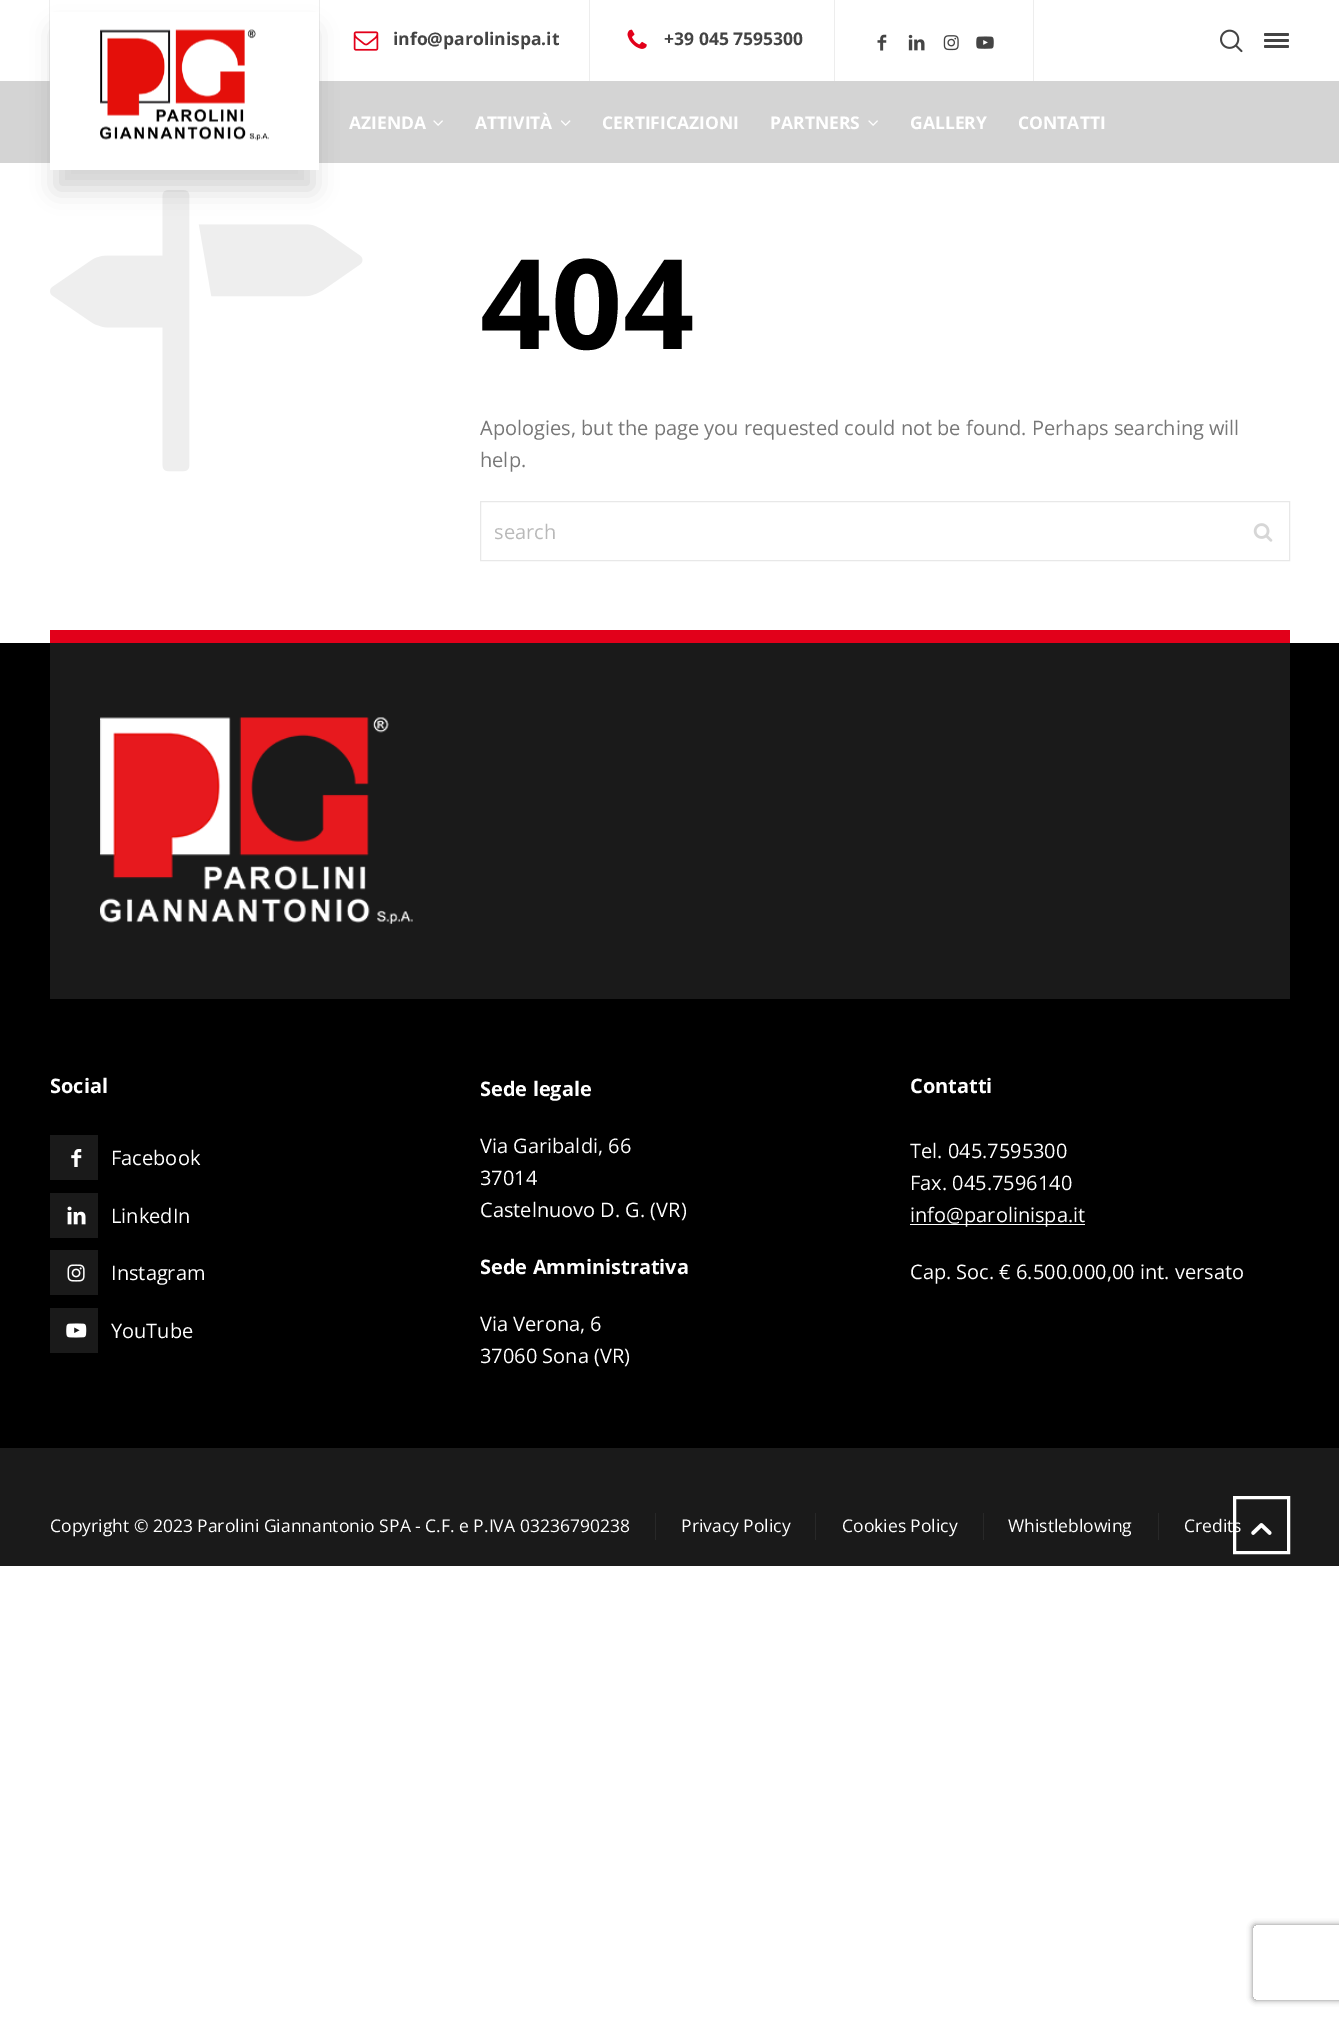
%!PS
<< /PageSize [1339 2017] /PageUsesTransparency true >> setpagedevice
/rgb { dup -16 bitshift 255 div exch dup -8 bitshift 255 and 255 div exch 255 and 255 div setrgbcolor } def
/font { [ exch dup neg 0 0 3 -1 roll 0 0 ] selectfont } def
/text { moveto show } def
/alpha { dup .setfillconstantalpha .setstrokeconstantalpha } def
/roundrect { 5 dict begin { /r /h /w /y /x } { exch def } forall
  x r add y moveto x w add y 2 copy h add r arct x w add y h add x 1 index r arct
  x y h add x y r arct x y 2 copy exch w add exch r arct closepath end } def
/shadow { 12 dict begin { /a /b /q /h /w /y /x } { exch def } forall gsave /was 0 def
  9 -2 -9 { dup b mul 4 div /e exch def 1 sub .425 mul 2.718 exch exp 1 add a .99 .min exch div /now exch def
    1 1 now sub 1 was sub div sub alpha /was now def
    w h .min e 2 mul add 0 gt { x e sub y e sub w e 2 mul add h e 2 mul add
      q e add b .6 mul add w h .min 2 div e add .min 0 .max roundrect fill } if } for grestore end } def
/picture { 5 dict begin { /h /w /y /x /name } { exch def } forall
  gsave x y translate w h scale
  w h 8 [w 0 0 h 0 0] name (r) file false 3 colorimage grestore end } def
0 .pushpdf14devicefilter
0 2017 translate 1 -1 scale
4 setmiterlimit
/s1 { /OpenSans-Bold 17.5 font 16#444444 rgb } def
/s2 { /OpenSans-Bold 17.5 font 16#FFFFFF rgb } def
/s3 { /OpenSans-Bold 125 font 16#000000 rgb } def
/s4 { /OpenSans-Regular 20 font 16#777777 rgb } def
/s5 { /OpenSans-Regular 20 font 16#B9B9B9 rgb } def
/s6 { /OpenSans-Bold 20 font 16#FFFFFF rgb } def
/s7 { /OpenSans-Regular 20 font 16#FFFFFF rgb } def
/s8 { /OpenSans-Regular 17.5 font 16#FFFFFF rgb } def
16#FFFFFF rgb
0 0 1339 2017 rectfill
16#D4D4D4 rgb
0 81 1339 82 rectfill
(pic11.raw) 50 190 313 282 picture
16#000000 rgb
56 31 257 158 0 12 0.17 shadow
16#FFFFFF rgb
50 12 269 158 rectfill
0.07 alpha
16#000000 rgb
49 0 1 81 rectfill
1 alpha
(pic1.raw) 100 29 169 112 picture
0.07 alpha
319 0 1 81 rectfill
1 alpha
16#EDEDED rgb
589 0 1 81 rectfill
(pic2.raw) 353 31 26 20 picture
s1
(info@parolinispa.it) 393 45 text
16#EDEDED rgb
834 0 1 81 rectfill
(pic3.raw) 627 29 20 20 picture
s1
(+39 045 7595300) 664 45 text
16#EDEDED rgb
1033 0 1 81 rectfill
(pic4.raw) 877 34 10 17 picture
(pic5.raw) 908 34 17 17 picture
(pic6.raw) 943 35 16 16 picture
(pic7.raw) 976 36 18 13 picture
(pic8.raw) 1220 29 23 24 picture
16#444444 rgb
1264 33 25 3 1.5 roundrect fill
1264 39 25 3 1.5 roundrect fill
1264 45 25 3 1.5 roundrect fill
s2
(AZIENDA) 349 129 text
(pic9.raw) 433 120 10 6 picture
(ATTIVITÀ) 475 129 text
(pic10.raw) 561 120 10 6 picture
(CERTIFICAZIONI) 602 129 text
(PARTNERS) 770 129 text
(pic9.raw) 868 120 10 6 picture
(GALLERY) 910 129 text
(CONTATTI) 1018 129 text
s3
(404) 480 349 text
s4
(Apologies, but the page you requested could not be found. Perhaps searching will) 480 435 text
(help.) 480 467 text
16#E8E8E8 rgb
480.5 501.5 809 59 rectstroke
s5
(search) 494 539 text
(pic12.raw) 1253 523 20 19 picture
16#000000 rgb
0 643 1339 805 rectfill
16#1A1A1A rgb
50 643 1240 356 rectfill
16#E2001A rgb
50 630 1240 13 rectfill
(pic13.raw) 100 717 313 207 picture
s6
(Social) 50 1093 text
16#1A1A1A rgb
50 1135 48 45 rectfill
(pic14.raw) 71 1149 11 18 picture
s7
(Facebook) 111 1165 text
16#1A1A1A rgb
50 1193 48 45 rectfill
(pic15.raw) 67 1206 19 19 picture
s7
(LinkedIn) 111 1223 text
16#1A1A1A rgb
50 1250 48 45 rectfill
(pic16.raw) 67 1264 18 18 picture
s7
(Instagram) 111 1280 text
16#1A1A1A rgb
50 1308 48 45 rectfill
(pic17.raw) 66 1323 21 15 picture
s7
(YouTube) 111 1338 text
s6
(Sede legale) 480 1096 text
s7
(Via Garibaldi, 66) 480 1153 text
(37014) 480 1185 text
(Castelnuovo D. G. \(VR\)) 480 1217 text
s6
(Sede Amministrativa) 480 1274 text
s7
(Via Verona, 6) 480 1331 text
(37060 Sona \(VR\)) 480 1363 text
s6
(Contatti) 910 1093 text
s7
(Tel. 045.7595300) 910 1158 text
(Fax. 045.7596140) 910 1190 text
910 1224 175 1 rectfill
(info@parolinispa.it) 910 1222 text
(Cap. Soc. € 6.500.000,00 int. versato) 910 1279 text
16#1A1A1A rgb
0 1448 1339 118 rectfill
s8
(Copyright © 2023 Parolini Giannantonio SPA - C.F. e P.IVA 03236790238) 50 1532 text
16#282828 rgb
655 1513 1 27 rectfill
s8
(Privacy Policy) 681 1532 text
16#282828 rgb
815 1513 1 27 rectfill
s8
(Cookies Policy) 842 1532 text
16#282828 rgb
983 1513 1 27 rectfill
s8
(Whistleblowing) 1008 1532 text
16#282828 rgb
1158 1513 1 27 rectfill
s8
(Credits) 1184 1532 text
3 setlinewidth
1234.5 1497.5 54 55 rectstroke
(pic18.raw) 1251 1523 21 12 picture
gsave
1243 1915 moveto 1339 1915 lineto 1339 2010 lineto 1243 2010 lineto closepath 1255.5 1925 moveto 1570.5 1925 lineto 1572 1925 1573 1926 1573 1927.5 curveto 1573 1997.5 lineto 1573 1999 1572 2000 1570.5 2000 curveto 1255.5 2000 lineto 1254 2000 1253 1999 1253 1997.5 curveto 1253 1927.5 lineto 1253 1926 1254 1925 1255.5 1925 curveto closepath eoclip newpath
16#808080 rgb
1253 1925 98 75 2.5 3 1 shadow
grestore
.poppdf14devicefilter showpage
